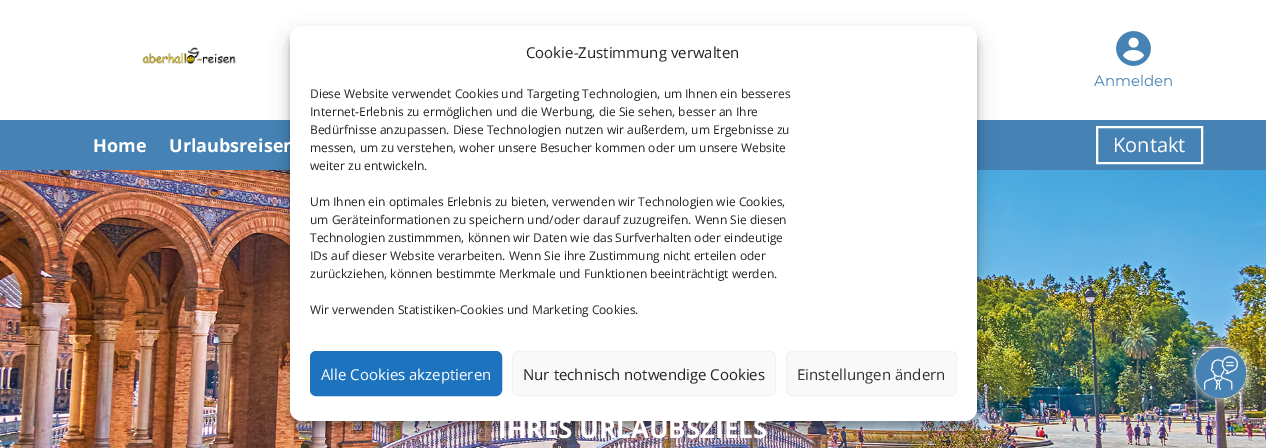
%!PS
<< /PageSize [1266 448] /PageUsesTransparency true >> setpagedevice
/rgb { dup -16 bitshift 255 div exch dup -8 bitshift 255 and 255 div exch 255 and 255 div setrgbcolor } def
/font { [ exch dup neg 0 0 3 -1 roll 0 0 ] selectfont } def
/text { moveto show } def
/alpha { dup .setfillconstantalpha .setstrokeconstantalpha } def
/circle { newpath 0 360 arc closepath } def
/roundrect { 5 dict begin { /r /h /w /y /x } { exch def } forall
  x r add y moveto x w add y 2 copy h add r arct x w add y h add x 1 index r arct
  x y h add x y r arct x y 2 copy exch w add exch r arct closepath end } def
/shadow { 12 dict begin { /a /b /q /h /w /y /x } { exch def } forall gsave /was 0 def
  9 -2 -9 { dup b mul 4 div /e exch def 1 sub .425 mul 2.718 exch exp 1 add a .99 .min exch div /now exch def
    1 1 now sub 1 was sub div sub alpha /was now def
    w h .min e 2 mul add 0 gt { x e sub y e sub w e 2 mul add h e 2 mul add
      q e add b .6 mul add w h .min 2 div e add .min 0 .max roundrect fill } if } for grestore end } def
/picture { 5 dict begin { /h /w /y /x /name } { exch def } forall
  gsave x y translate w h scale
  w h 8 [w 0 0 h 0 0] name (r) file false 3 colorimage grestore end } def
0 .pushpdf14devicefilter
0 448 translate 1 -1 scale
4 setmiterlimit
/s1 { /OpenSans-Regular 15 font 16#222222 rgb } def
/s2 { /OpenSans-Regular 12 font 16#222222 rgb } def
/s3 { /OpenSans-Regular 15 font 16#FFFFFF rgb } def
/s4 { /OpenSans-Regular 15 font 16#333333 rgb } def
/s5 { /Montserrat-Regular 15 font 16#4682B4 rgb } def
/s6 { /OpenSans-Bold 18 font 16#FFFFFF rgb } def
/s7 { /OpenSans-Regular 20 font 16#FFFFFF rgb } def
/s8 { /OpenSans-Bold 26 font 16#FFFFFF rgb } def
16#FFFFFF rgb
0 0 1266 448 rectfill
16#4682B4 rgb
0 120 1266 50 rectfill
(pic4.raw) 0 170 1266 278 picture
16#000000 rgb
290 32 687 395 12 3 0.23 shadow
290 36 687 395 12 10 0.19 shadow
16#FFFFFF rgb
290 26 687 395 12 roundrect fill
s1
(Cookie-Zustimmung verwalten) 526 58 text
s2
(Diese Website verwendet Cookies und Targeting Technologien, um Ihnen ein besseres) 310 98 text
(Internet-Erlebnis zu ermöglichen und die Werbung, die Sie sehen, besser an Ihre) 310 116 text
(Bedürfnisse anzupassen. Diese Technologien nutzen wir außerdem, um Ergebnisse zu) 310 134 text
(messen, um zu verstehen, woher unsere Besucher kommen oder um unsere Website) 310 152 text
(weiter zu entwickeln.) 310 170 text
(Um Ihnen ein optimales Erlebnis zu bieten, verwenden wir Technologien wie Cookies,) 310 206 text
(um Geräteinformationen zu speichern und/oder darauf zuzugreifen. Wenn Sie diesen) 310 224 text
(Technologien zustimmmen, können wir Daten wie das Surfverhalten oder eindeutige) 310 242 text
(IDs auf dieser Website verarbeiten. Wenn Sie ihre Zustimmung nicht erteilen oder) 310 260 text
(zurückziehen, können bestimmte Merkmale und Funktionen beeinträchtigt werden.) 310 278 text
(Wir verwenden Statistiken-Cookies und Marketing Cookies.) 310 314 text
16#1E73BE rgb
310.5 351.5 191 44 5.5 roundrect gsave fill grestore
stroke
s3
(Alle Cookies akzeptieren) 321 380 text
16#F9F9F9 rgb
512.5 351.5 263 44 5.5 roundrect gsave fill grestore
16#F2F2F2 rgb
stroke
s1
(Nur technisch notwendige Cookies) 523 380 text
16#F9F9F9 rgb
786.5 351.5 170 44 5.5 roundrect gsave fill grestore
16#F2F2F2 rgb
stroke
s4
(Einstellungen ändern) 797 380 text
(pic1.raw) 142 47 94 18 picture
(pic2.raw) 1116 31 35 35 picture
s5
(Anmelden) 1094 86 text
s6
(Home) 93 152 text
(Urlaubsreisen) 169 152 text
2 setlinewidth
1097 127 105 36 rectstroke
s7
(Kontakt) 1113 152 text
1196 348 50 50 25 5 1 shadow
16#4682B4 rgb
1221 373 25 circle fill
(pic3.raw) 1204 355 34 35 picture
s8
(IHRES URLAUBSZIELS) 498 438 text
.poppdf14devicefilter showpage
